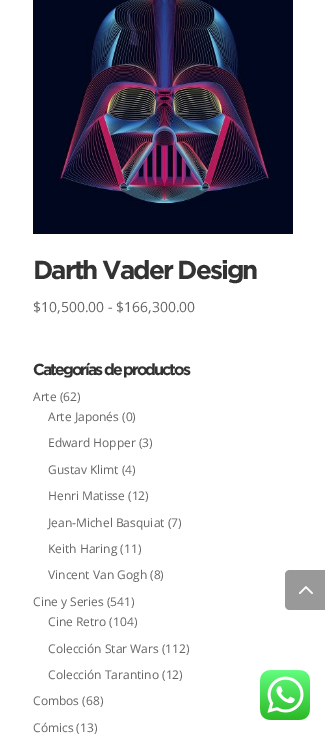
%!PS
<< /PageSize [325 735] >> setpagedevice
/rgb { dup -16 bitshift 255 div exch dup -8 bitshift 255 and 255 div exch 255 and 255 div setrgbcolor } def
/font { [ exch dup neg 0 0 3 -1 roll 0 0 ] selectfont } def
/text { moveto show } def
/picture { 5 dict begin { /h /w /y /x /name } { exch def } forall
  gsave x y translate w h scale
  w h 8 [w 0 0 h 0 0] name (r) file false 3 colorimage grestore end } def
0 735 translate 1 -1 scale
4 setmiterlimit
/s1 { /OpenSans-Regular 14 font 16#666666 rgb } def
/s2 { /OpenSans-Regular 12 font 16#666666 rgb } def
16#FFFFFF rgb
0 0 325 735 rectfill
(pic1.raw) 33 0 260 234 picture
/Gotham-Bold 26 font
16#333333 rgb
33 279 moveto -2 0 (Darth Vader Design) ashow
s1
($10,500.00 - $166,300.00) 33 312 text
/Gotham-Bold 16 font
16#333333 rgb
33 375 moveto -2 0 (Categorías de productos) ashow
s2
(Arte \(62\)) 33 401 text
(Arte Japonés \(0\)) 48 421 text
(Edward Hopper \(3\)) 48 447 text
(Gustav Klimt \(4\)) 48 474 text
(Henri Matisse \(12\)) 48 500 text
(Jean-Michel Basquiat \(7\)) 48 527 text
(Keith Haring \(11\)) 48 553 text
(Vincent Van Gogh \(8\)) 48 579 text
(Cine y Series \(541\)) 33 606 text
(Cine Retro \(104\)) 48 626 text
(Colección Star Wars \(112\)) 48 653 text
(Colección Tarantino \(12\)) 48 679 text
(Combos \(68\)) 33 705 text
(Cómics \(13\)) 33 732 text
16#999999 rgb
290 570 moveto 325 570 lineto 325 610 lineto 290 610 lineto 287 610 285 608 285 605 curveto 285 575 lineto 285 572 287 570 290 570 curveto closepath fill
(pic2.raw) 299 586 14 8 picture
(pic3.raw) 260 670 50 50 picture
showpage
